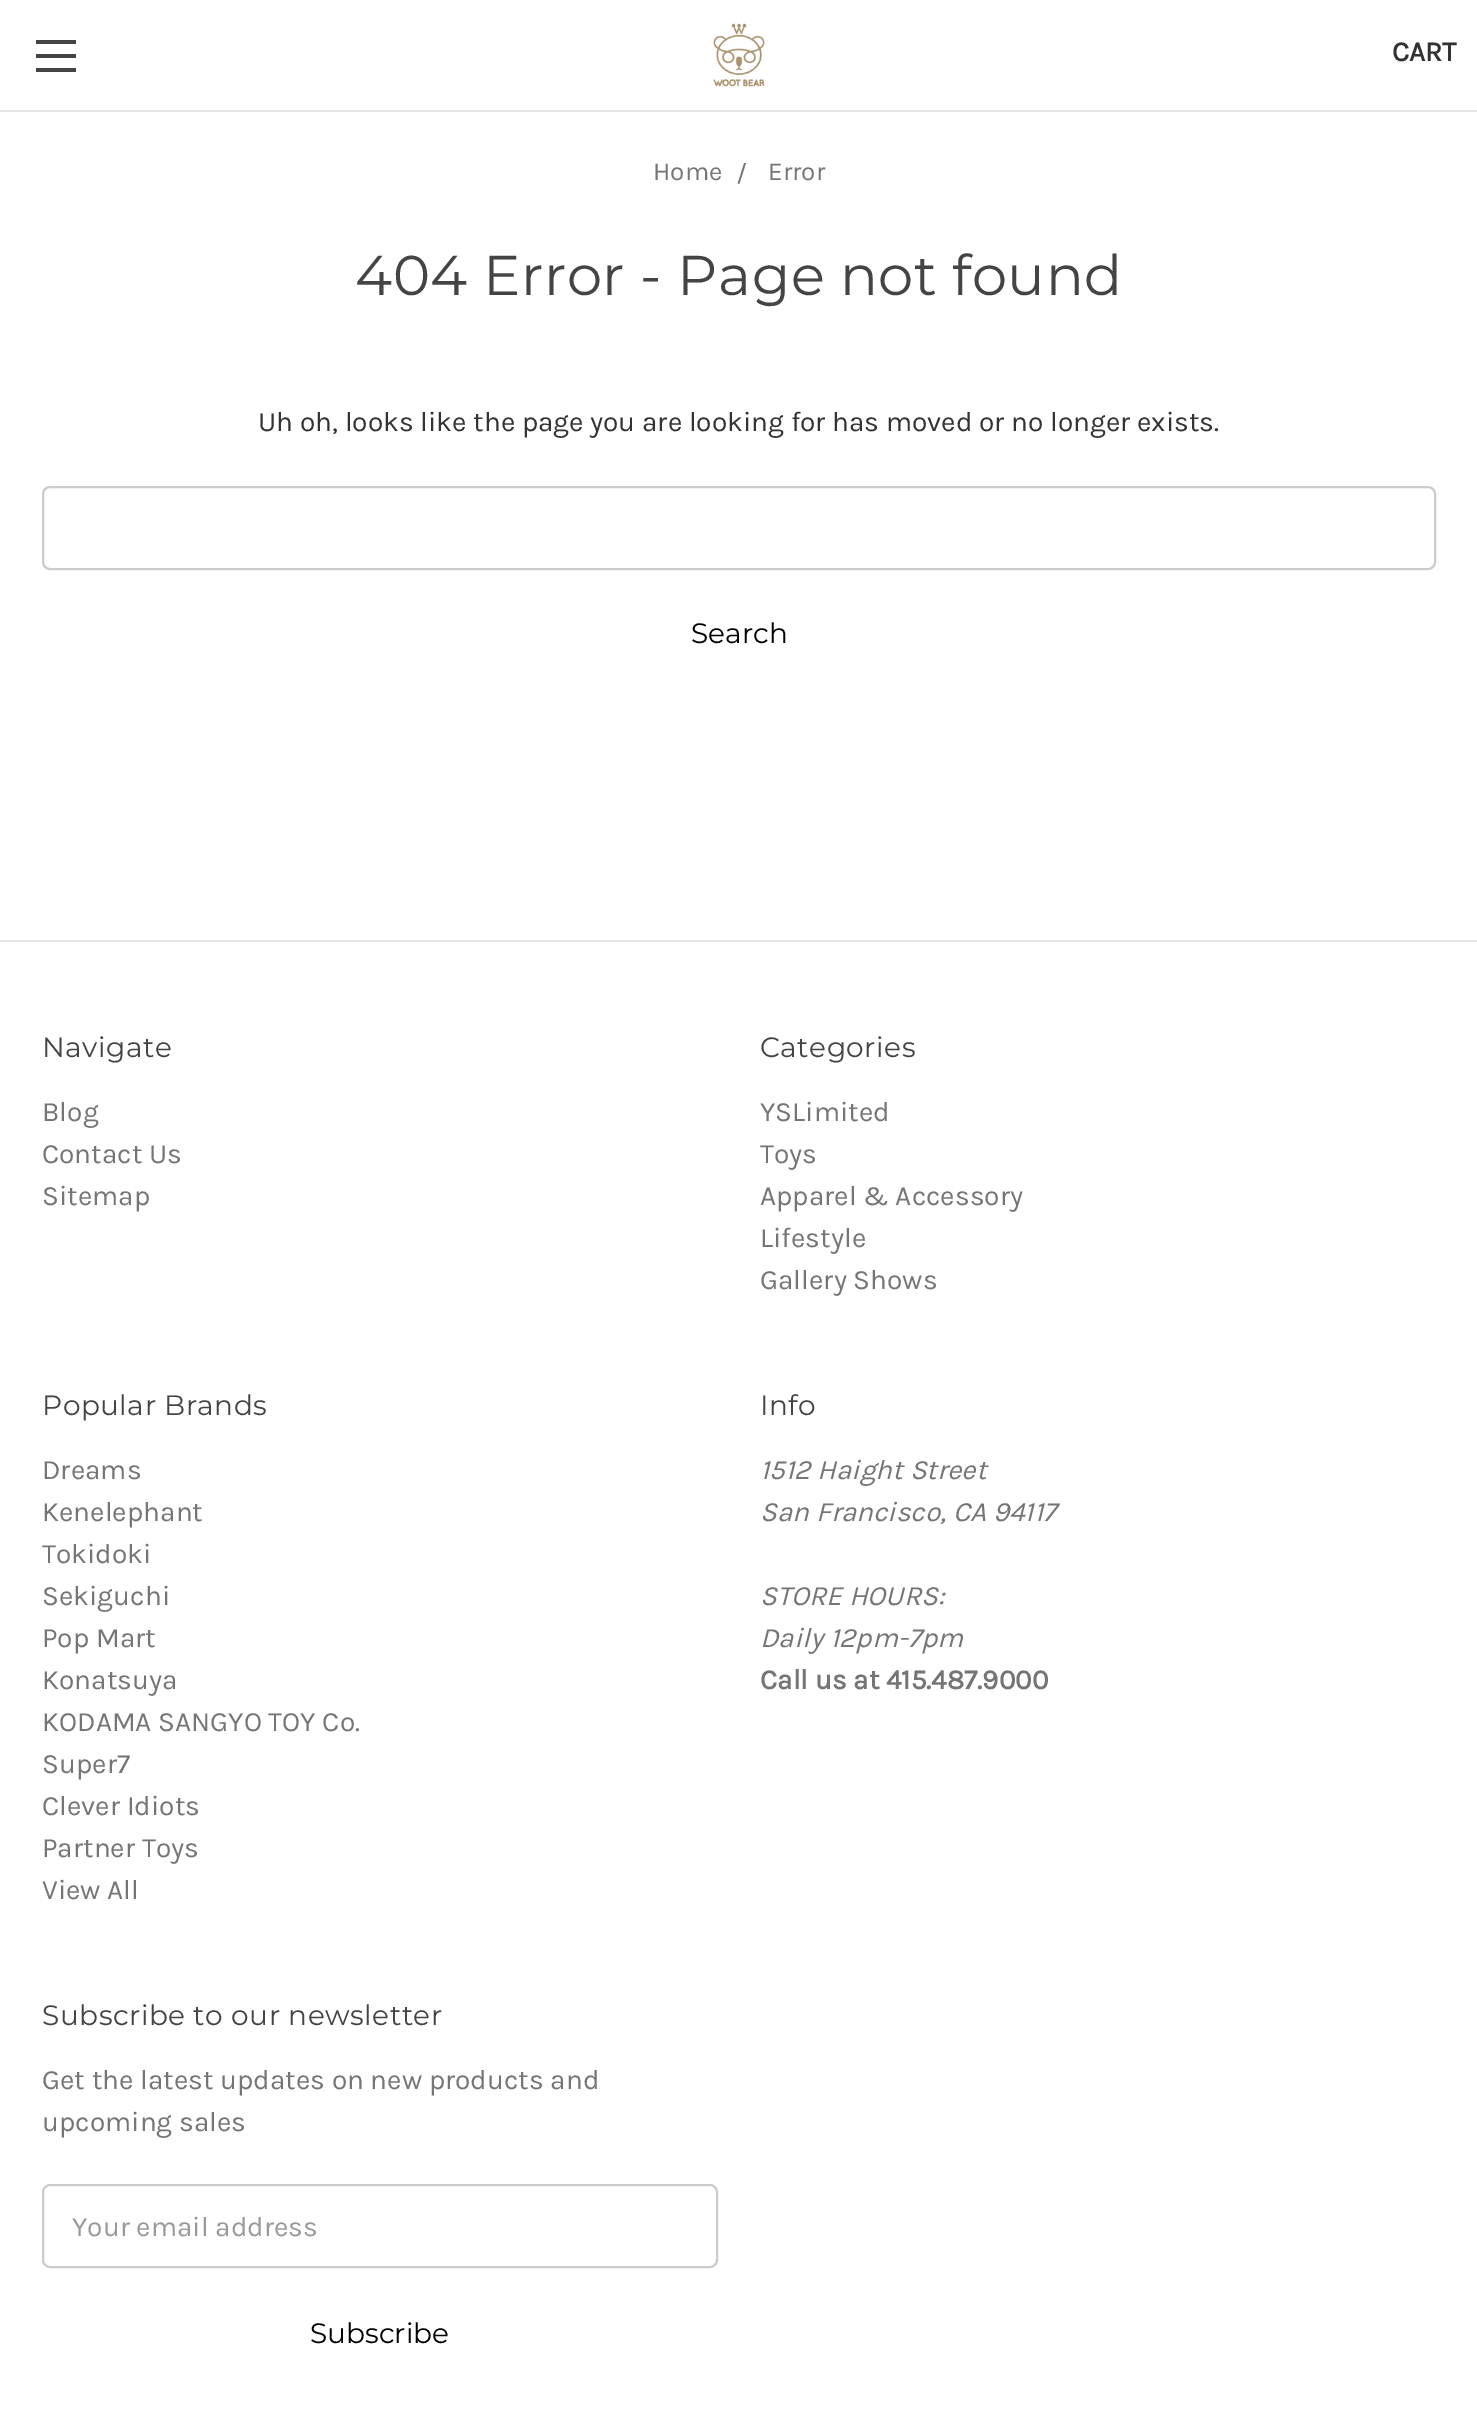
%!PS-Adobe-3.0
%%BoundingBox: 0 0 1477 2411
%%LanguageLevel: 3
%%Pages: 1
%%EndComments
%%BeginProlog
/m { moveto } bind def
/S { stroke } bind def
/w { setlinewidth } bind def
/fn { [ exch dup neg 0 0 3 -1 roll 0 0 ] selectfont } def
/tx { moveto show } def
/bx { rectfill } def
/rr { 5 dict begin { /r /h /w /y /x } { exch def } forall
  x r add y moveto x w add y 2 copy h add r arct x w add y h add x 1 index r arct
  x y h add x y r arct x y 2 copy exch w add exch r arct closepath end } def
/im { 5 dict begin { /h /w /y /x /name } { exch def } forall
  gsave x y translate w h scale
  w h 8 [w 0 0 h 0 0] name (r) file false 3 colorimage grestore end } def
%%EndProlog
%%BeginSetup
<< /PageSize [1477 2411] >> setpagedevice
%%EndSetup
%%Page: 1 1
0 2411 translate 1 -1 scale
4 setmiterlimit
1 setgray
0 0 1477 2411 bx
0.898 setgray
0 110 1477 2 bx
0.267 setgray
36 54 40 4 bx
36 40 40 4 bx
36 68 40 4 bx
(image0.raw) 713 23 52 64 im
/Karla-Bold 28 fn
0.2 setgray
(CART) 1392 61 tx
/Karla-Regular 26 fn
0.459 setgray
(Home) 653 180 tx
(/) 736 182 tx
(Error) 768 180 tx
/Montserrat-Regular 56 fn
0.267 setgray
355 295 m 0.5 0 (404 Error - Page not found) ashow
/Karla-Regular 28 fn
0.2 setgray
(Uh oh, looks like the page you are looking for has moved or no longer exists.) 258 431 tx
0.8 setgray
2 w
43 487 1392 82 7 rr S
/Montserrat-Regular 28 fn
0 setgray
(Search) 691 643 tx
0.898 setgray
0 940 1477 2 bx
0.267 setgray
42 1057 m 0.5 0 (Navigate) ashow
/Karla-Regular 28 fn
0.459 setgray
(Blog) 42 1121 tx
(Contact Us) 42 1163 tx
(Sitemap) 42 1205 tx
/Montserrat-Regular 28 fn
0.267 setgray
760 1057 m 0.5 0 (Categories) ashow
/Karla-Regular 28 fn
0.459 setgray
(YSLimited) 760 1121 tx
(Toys) 760 1163 tx
(Apparel & Accessory) 760 1205 tx
(Lifestyle) 760 1247 tx
(Gallery Shows) 760 1289 tx
/Montserrat-Regular 28 fn
0.267 setgray
42 1415 m 0.5 0 (Popular Brands) ashow
/Karla-Regular 28 fn
0.459 setgray
(Dreams) 42 1479 tx
(Kenelephant) 42 1521 tx
(Tokidoki) 42 1563 tx
(Sekiguchi) 42 1605 tx
(Pop Mart) 42 1647 tx
(Konatsuya) 42 1689 tx
(KODAMA SANGYO TOY Co.) 42 1731 tx
(Super7) 42 1773 tx
(Clever Idiots) 42 1815 tx
(Partner Toys) 42 1857 tx
(View All) 42 1899 tx
/Montserrat-Regular 28 fn
0.267 setgray
760 1415 m 0.5 0 (Info) ashow
/Karla-Italic 28 fn
0.459 setgray
(1512 Haight Street) 760 1479 tx
(San Francisco, CA 94117) 760 1521 tx
(STORE HOURS:) 760 1605 tx
(Daily 12pm-7pm) 760 1647 tx
/Karla-Bold 28 fn
(Call us at 415.487.9000) 760 1689 tx
/Montserrat-Regular 28 fn
0.267 setgray
42 2025 m 0.5 0 (Subscribe to our newsletter) ashow
/Karla-Regular 28 fn
0.459 setgray
(Get the latest updates on new products and) 42 2089 tx
(upcoming sales) 42 2131 tx
0.8 setgray
43 2185 674 82 7 rr S
0.6 setgray
(Your email address) 72 2236 tx
/Montserrat-Regular 28 fn
0 setgray
(Subscribe) 310 2343 tx
showpage
%%EOF
